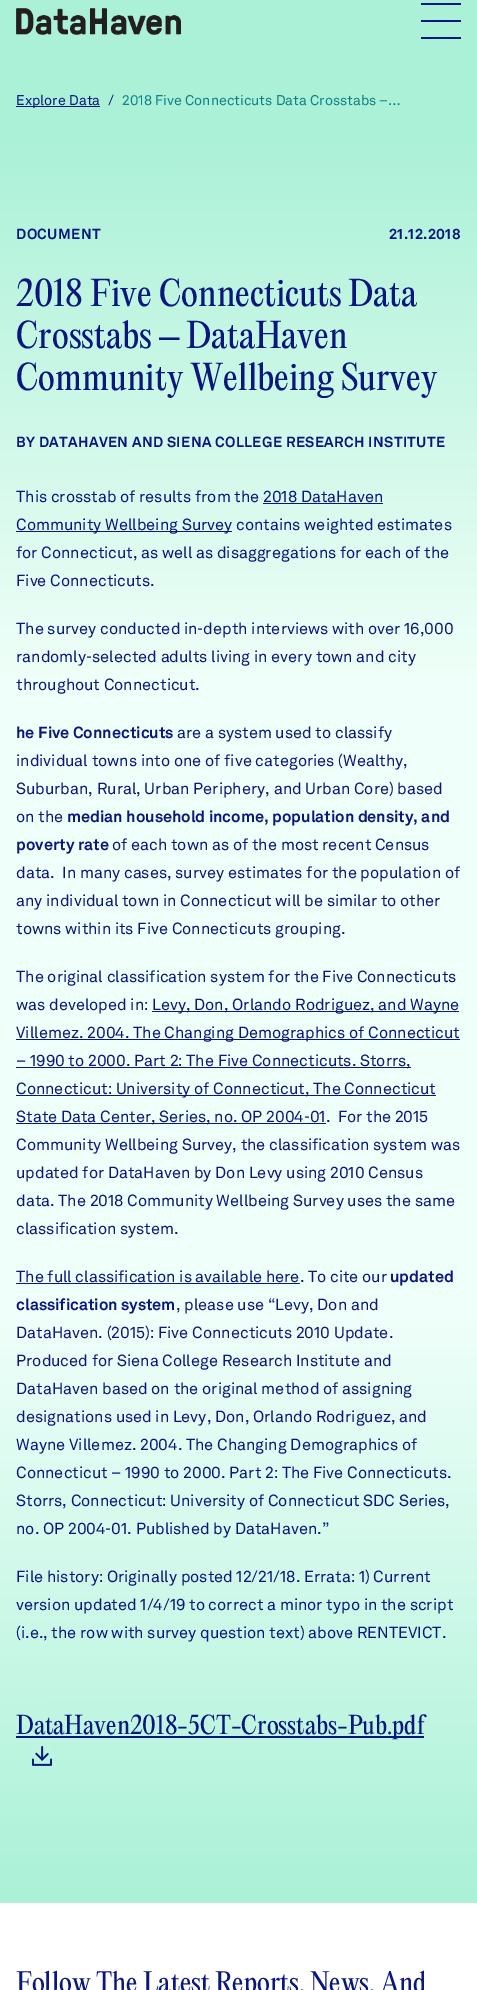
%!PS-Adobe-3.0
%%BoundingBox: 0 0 477 1990
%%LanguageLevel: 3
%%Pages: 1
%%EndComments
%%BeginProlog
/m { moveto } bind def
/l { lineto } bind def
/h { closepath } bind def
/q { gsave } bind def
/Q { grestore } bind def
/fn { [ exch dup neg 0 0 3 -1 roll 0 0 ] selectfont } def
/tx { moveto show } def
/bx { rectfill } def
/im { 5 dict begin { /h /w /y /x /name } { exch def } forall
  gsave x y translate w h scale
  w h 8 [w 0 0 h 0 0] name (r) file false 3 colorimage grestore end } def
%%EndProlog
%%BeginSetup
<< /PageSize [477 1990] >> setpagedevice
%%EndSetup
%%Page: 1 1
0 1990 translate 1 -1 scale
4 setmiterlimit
1 setgray
0 0 477 1990 bx
0.667 0.945 0.843 setrgbcolor
0 0 477 129 bx
(image0.raw) 16 8 165 27 im
0.043 0.09 0.486 setrgbcolor
421 3 40 2 bx
421 20 40 2 bx
421 37 40 2 bx
16 106 84 1 bx
/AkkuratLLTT-Regular 14 fn
(Explore Data) 16 105 tx
(/) 108 105 tx
0.071 0.502 0.529 setrgbcolor
(2018 Five Connecticuts Data Crosstabs –…) 122 105 tx
q 0 129 m 477 129 l 477 1903 l 0 1903 l h clip newpath
<< /ShadingType 2 /ColorSpace /DeviceRGB /Coords [238 128 239 1903] /Extend [true true] /Function << /FunctionType 3 /Domain [0 1] /Functions [<< /FunctionType 2 /Domain [0 1] /C0 [0.667 0.945 0.843] /C1 [0.937 1 0.976] /N 1 >> << /FunctionType 2 /Domain [0 1] /C0 [0.937 1 0.976] /C1 [0.937 1 0.976] /N 1 >> << /FunctionType 2 /Domain [0 1] /C0 [0.937 1 0.976] /C1 [0.667 0.945 0.843] /N 1 >>] /Bounds [0.31 0.67] /Encode [0 1 0 1 0 1] >> >> shfill Q
/AkkuratLLTT-Bold 14.5 fn
0.043 0.09 0.486 setrgbcolor
16 239 m 0.35 0 (DOCUMENT) ashow
389 239 m 0.35 0 (21.12.2018) ashow
/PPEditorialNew-Regular 34 fn
(2018 Five Connecticuts Data) 16 306 tx
(Crosstabs – DataHaven) 16 348 tx
(Community Wellbeing Survey) 16 390 tx
/AkkuratLLTT-Bold 14.5 fn
16 447 m 0.35 0 (BY DATAHAVEN AND SIENA COLLEGE RESEARCH INSTITUTE) ashow
/AkkuratLLTT-Regular 16 fn
(This crosstab of results from the 2018 DataHaven) 16 502 tx
16 531 216 1 bx
(Community Wellbeing Survey contains weighted estimates) 16 530 tx
263 503 120 1 bx
(for Connecticut, as well as disaggregations for each of the) 16 558 tx
(Five Connecticuts.) 16 586 tx
(The survey conducted in-depth interviews with over 16,000) 16 634 tx
(randomly-selected adults living in every town and city) 16 662 tx
(throughout Connecticut.) 16 690 tx
/AkkuratLLTT-Bold 16 fn
(he Five Connecticuts) 16 738 tx
/AkkuratLLTT-Regular 16 fn
(are a system used to classify) 177 738 tx
(individual towns into one of five categories \(Wealthy,) 16 766 tx
(Suburban, Rural, Urban Periphery, and Urban Core\) based) 16 794 tx
(on the) 16 822 tx
/AkkuratLLTT-Bold 16 fn
(median household income, population density, and) 67 822 tx
(poverty rate) 16 850 tx
/AkkuratLLTT-Regular 16 fn
(of each town as of the most recent Census) 112 850 tx
(data.  In many cases, survey estimates for the population of) 16 878 tx
(any individual town in Connecticut will be similar to other) 16 906 tx
(towns within its Five Connecticuts grouping.) 16 934 tx
(The original classification system for the Five Connecticuts) 16 982 tx
(was developed in:) 16 1010 tx
152 1011 307 1 bx
(Levy, Don, Orlando Rodriguez, and Wayne) 152 1010 tx
16 1039 444 1 bx
(Villemez. 2004. The Changing Demographics of Connecticut) 16 1038 tx
16 1067 395 1 bx
(– 1990 to 2000. Part 2: The Five Connecticuts. Storrs,) 16 1066 tx
16 1095 420 1 bx
(Connecticut: University of Connecticut, The Connecticut) 16 1094 tx
16 1123 310 1 bx
(State Data Center, Series, no. OP 2004-01.  For the 2015) 16 1122 tx
(Community Wellbeing Survey, the classification system was) 16 1150 tx
(updated for DataHaven by Don Levy using 2010 Census) 16 1178 tx
(data. The 2018 Community Wellbeing Survey uses the same) 16 1206 tx
(classification system.) 16 1234 tx
(The full classification is available here. To cite our) 16 1282 tx
16 1283 284 1 bx
/AkkuratLLTT-Bold 16 fn
(updated) 390 1282 tx
(classification system) 16 1310 tx
/AkkuratLLTT-Regular 16 fn
(, please use “Levy, Don and) 176 1310 tx
(DataHaven. \(2015\): Five Connecticuts 2010 Update.) 16 1338 tx
(Produced for Siena College Research Institute and) 16 1366 tx
(DataHaven based on the original method of assigning) 16 1394 tx
(designations used in Levy, Don, Orlando Rodriguez, and) 16 1422 tx
(Wayne Villemez. 2004. The Changing Demographics of) 16 1450 tx
(Connecticut – 1990 to 2000. Part 2: The Five Connecticuts.) 16 1478 tx
(Storrs, Connecticut: University of Connecticut SDC Series,) 16 1506 tx
(no. OP 2004-01. Published by DataHaven.”) 16 1534 tx
(File history: Originally posted 12/21/18. Errata: 1\) Current) 16 1582 tx
(version updated 1/4/19 to correct a minor typo in the script) 16 1610 tx
(\(i.e., the row with survey question text\) above RENTEVICT.) 16 1638 tx
16 1736 408 2 bx
/PPEditorialNew-Regular 24 fn
(DataHaven2018-5CT-Crosstabs-Pub.pdf) 16 1734 tx
(image1.raw) 32 1746 20 20 im
/PPEditorialNew-Regular 26 fn
(Follow The Latest Reports, News, And) 16 1992 tx
showpage
%%EOF
